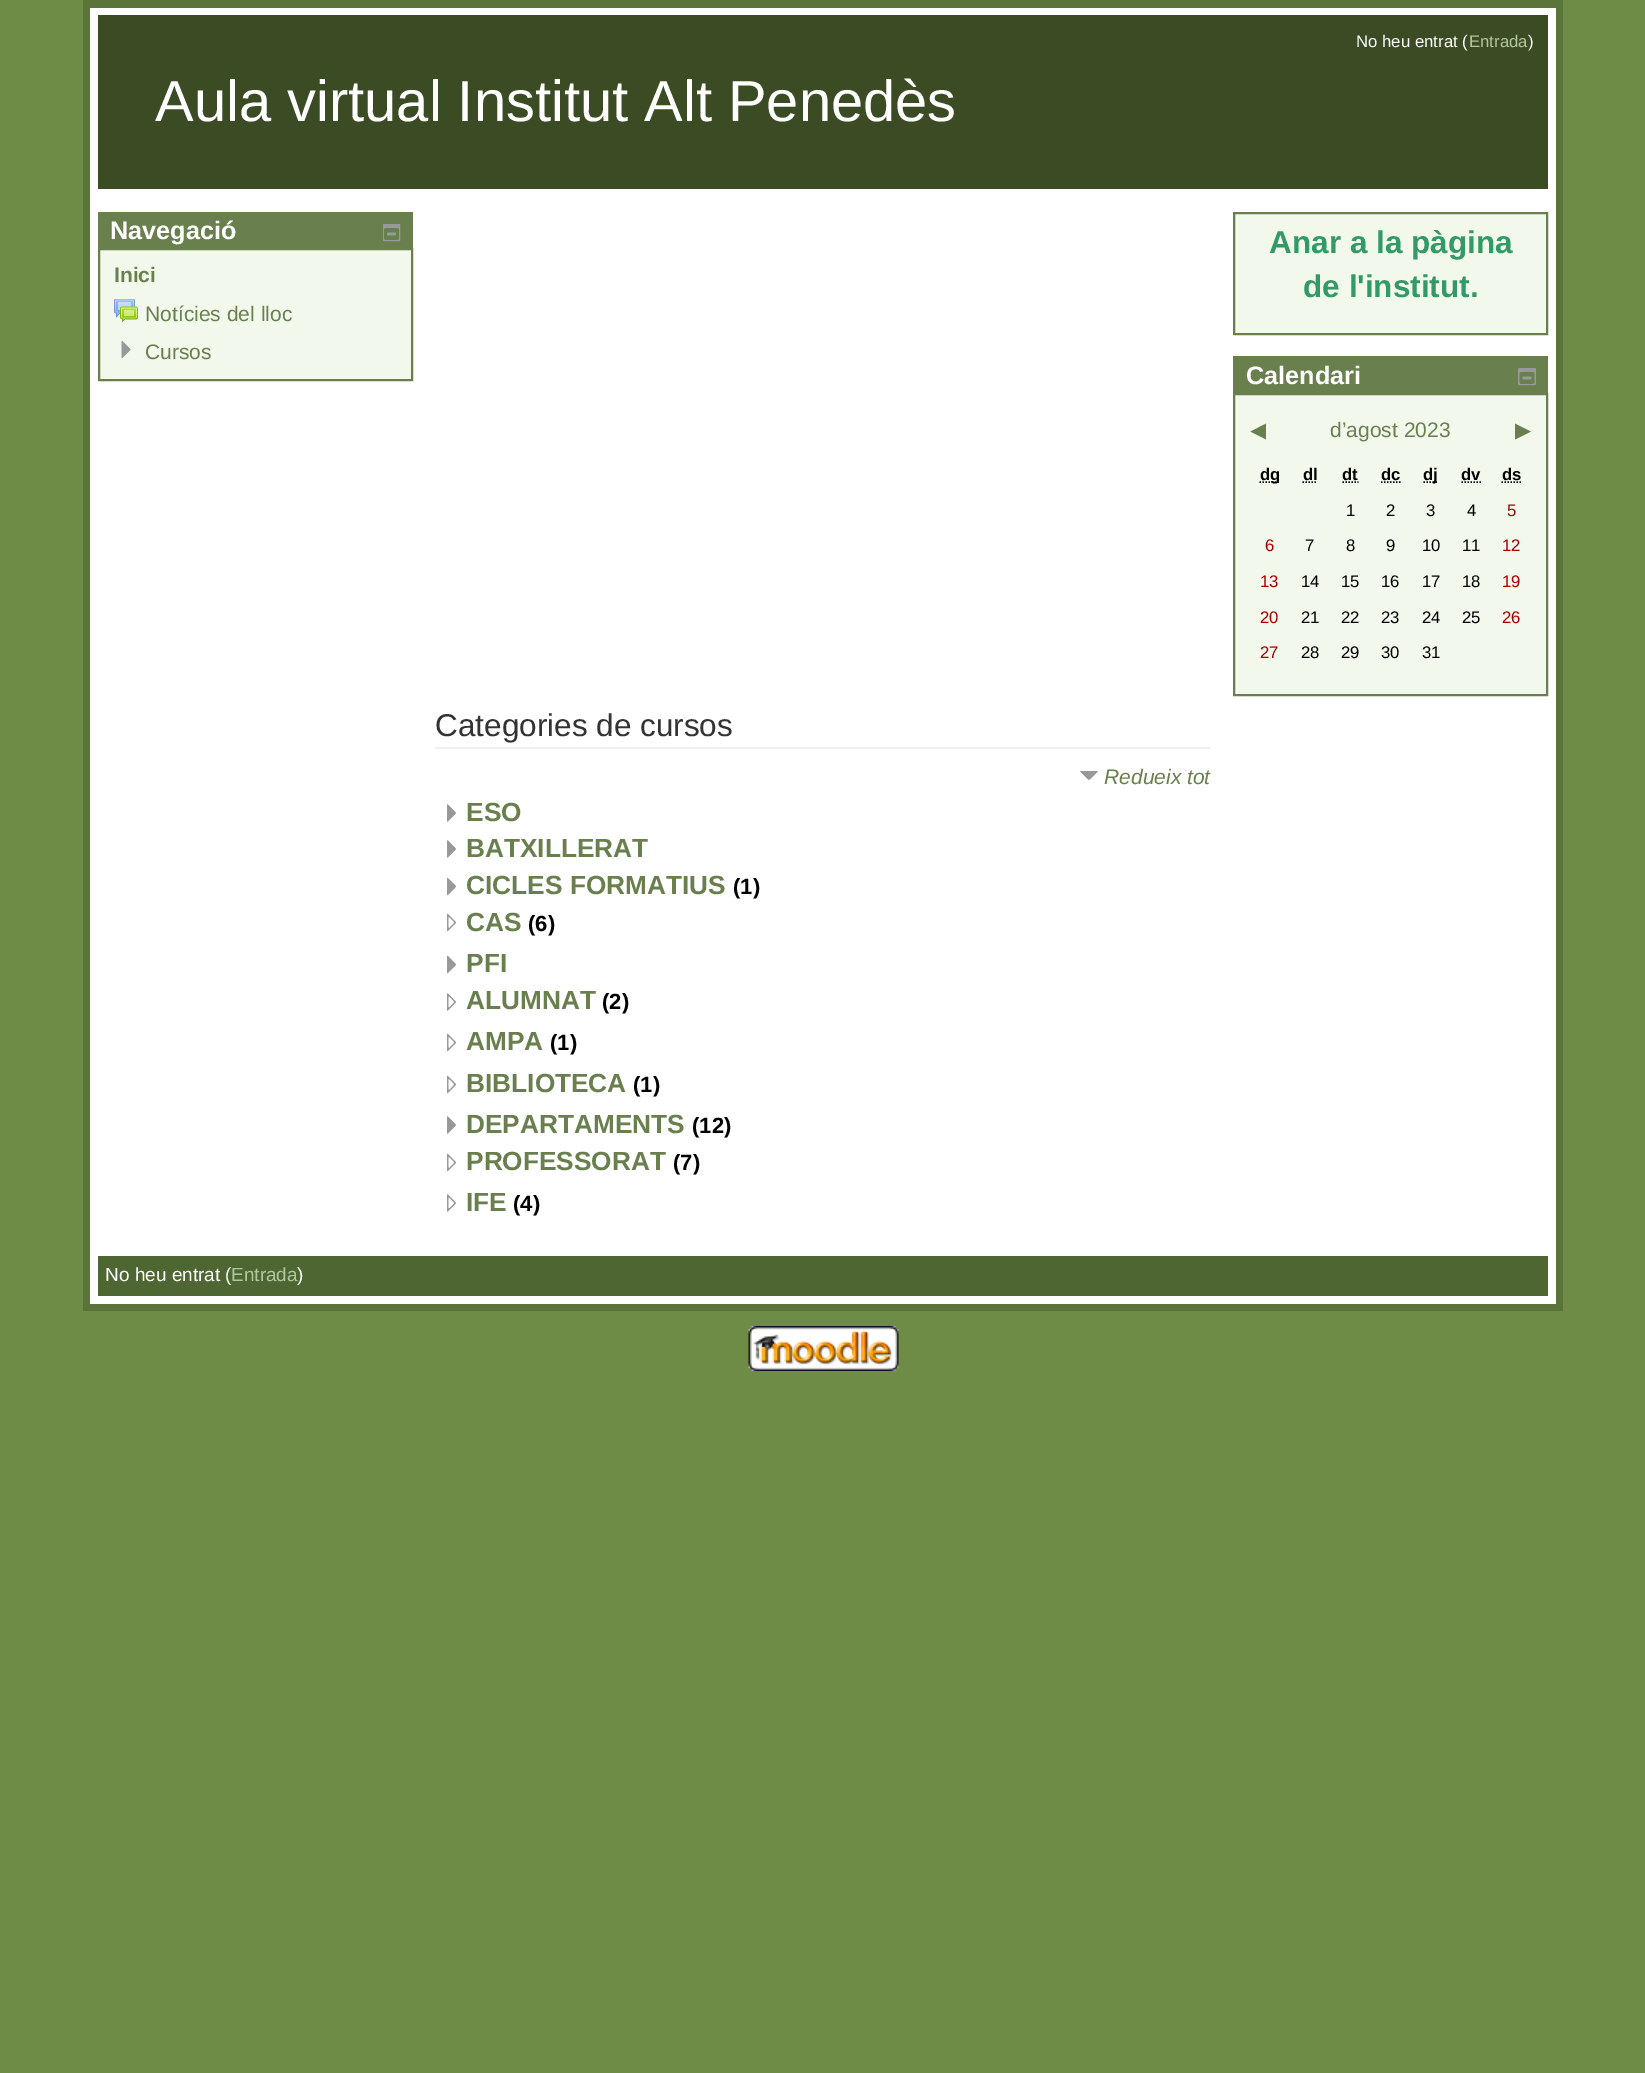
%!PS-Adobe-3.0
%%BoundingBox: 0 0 1645 2073
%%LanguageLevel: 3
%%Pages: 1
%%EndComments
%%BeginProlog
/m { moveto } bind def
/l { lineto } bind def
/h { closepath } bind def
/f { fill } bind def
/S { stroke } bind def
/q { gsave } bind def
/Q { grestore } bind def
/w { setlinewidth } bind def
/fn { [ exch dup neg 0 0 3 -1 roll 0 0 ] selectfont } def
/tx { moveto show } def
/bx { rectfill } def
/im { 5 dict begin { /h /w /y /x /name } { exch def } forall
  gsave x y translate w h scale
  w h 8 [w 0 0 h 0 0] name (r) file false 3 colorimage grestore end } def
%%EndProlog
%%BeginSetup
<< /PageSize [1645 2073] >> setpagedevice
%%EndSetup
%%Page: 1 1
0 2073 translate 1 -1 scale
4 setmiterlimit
0.431 0.549 0.271 setrgbcolor
0 0 1645 2073 bx
0.357 0.455 0.224 setrgbcolor
83 0 1480 1311 bx
1 setgray
90 8 1466 1296 bx
0.231 0.298 0.145 setrgbcolor
98 15 1450 174 bx
/LiberationSans-Regular 16.75 fn
1 setgray
(No heu entrat \() 1356 47 tx
0.702 0.78 0.616 setrgbcolor
(Entrada) 1469 47 tx
1 setgray
(\)) 1528 47 tx
/LiberationSans-Regular 57.9 fn
(Aula virtual Institut Alt Penedès) 155 121 tx
0.412 0.502 0.306 setrgbcolor
98 212 315 36 bx
/LiberationSans-Bold 25.25 fn
1 setgray
(Navegació) 110 239 tx
(image0.raw) 383 224 18 18 im
0.953 0.973 0.929 setrgbcolor
99 249 m 412 249 l 412 380 l 99 380 l h q f Q
0.412 0.502 0.306 setrgbcolor
2 w
S
/LiberationSans-Bold 21 fn
(Inici) 114 282 tx
(image1.raw) 114 299 24 24 im
/LiberationSans-Regular 21 fn
(Notícies del lloc) 145 321 tx
(image2.raw) 121 340 10 19 im
(Cursos) 145 359 tx
0.953 0.973 0.929 setrgbcolor
1234 213 m 1547 213 l 1547 334 l 1234 334 l h q f Q
0.412 0.502 0.306 setrgbcolor
S
/LiberationSans-Bold 31.5 fn
0.2 0.6 0.4 setrgbcolor
(Anar a la pàgina) 1269 253 tx
(de l'institut.) 1303 297 tx
0.412 0.502 0.306 setrgbcolor
1233 356 315 37 bx
/LiberationSans-Bold 25.25 fn
1 setgray
(Calendari) 1246 384 tx
(image3.raw) 1518 368 18 18 im
0.953 0.973 0.929 setrgbcolor
1234 394 m 1547 394 l 1547 695 l 1234 695 l h q f Q
0.412 0.502 0.306 setrgbcolor
S
/DejaVuSans-Regular 21 fn
(◀) 1250 437 tx
/LiberationSans-Regular 21 fn
(d’agost 2023) 1330 437 tx
/DejaVuSans-Regular 21 fn
(▶) 1515 437 tx
0 setgray
1.5 w
[1.5 1.5] 0 setdash
1259.5 482 m 1280 482 l S
/LiberationSans-Bold 16.75 fn
(dg) 1260 480 tx
(dl) 1303 480 tx
1302.5 482 m 1317.5 482 l S
(dt) 1342 480 tx
1342.5 482 m 1358.5 482 l S
(dc) 1381 480 tx
1381 482 m 1400.5 482 l S
1423.5 482 m 1438.5 482 l S
(dj) 1423 480 tx
(dv) 1461 480 tx
1461.5 482 m 1481 482 l S
(ds) 1502 480 tx
1501.5 482 m 1521.5 482 l S
/LiberationSans-Regular 16.75 fn
(1) 1346 516 tx
(2) 1386 516 tx
(3) 1426 516 tx
(4) 1467 516 tx
0.667 0 0 setrgbcolor
(5) 1507 516 tx
(6) 1265 551 tx
0 setgray
(7) 1305 551 tx
(8) 1346 551 tx
(9) 1386 551 tx
(10) 1422 551 tx
(11) 1462 551 tx
0.667 0 0 setrgbcolor
(12) 1502 551 tx
(13) 1260 587 tx
0 setgray
(14) 1301 587 tx
(15) 1341 587 tx
(16) 1381 587 tx
(17) 1422 587 tx
(18) 1462 587 tx
0.667 0 0 setrgbcolor
(19) 1502 587 tx
(20) 1260 623 tx
0 setgray
(21) 1301 623 tx
(22) 1341 623 tx
(23) 1381 623 tx
(24) 1422 623 tx
(25) 1462 623 tx
0.667 0 0 setrgbcolor
(26) 1502 623 tx
(27) 1260 658 tx
0 setgray
(28) 1301 658 tx
(29) 1341 658 tx
(30) 1381 658 tx
(31) 1422 658 tx
0.933 setgray
435 747 776 2 bx
/LiberationSans-Regular 31.5 fn
0.2 setgray
(Categories de cursos) 435 736 tx
(image4.raw) 1080 771 18 9 im
/LiberationSans-Italic 21 fn
0.412 0.502 0.306 setrgbcolor
(Redueix tot) 1104 784 tx
(image5.raw) 447 804 9 18 im
/LiberationSans-Bold 26.25 fn
(ESO) 466 821 tx
(image5.raw) 447 840 9 18 im
(BATXILLERAT) 466 857 tx
(image6.raw) 447 877 9 19 im
(CICLES FORMATIUS) 466 894 tx
/LiberationSans-Bold 22 fn
0 setgray
(\(1\)) 733 894 tx
(image7.raw) 447 913 9 19 im
/LiberationSans-Bold 26.25 fn
0.412 0.502 0.306 setrgbcolor
(CAS) 466 931 tx
/LiberationSans-Bold 22 fn
0 setgray
(\(6\)) 528 931 tx
(image6.raw) 447 955 9 19 im
/LiberationSans-Bold 26.25 fn
0.412 0.502 0.306 setrgbcolor
(PFI) 466 972 tx
(image8.raw) 447 993 9 18 im
(ALUMNAT) 466 1009 tx
/LiberationSans-Bold 22 fn
0 setgray
(\(2\)) 602 1009 tx
(image7.raw) 447 1033 9 19 im
/LiberationSans-Bold 26.25 fn
0.412 0.502 0.306 setrgbcolor
(AMPA) 466 1050 tx
/LiberationSans-Bold 22 fn
0 setgray
(\(1\)) 550 1050 tx
(image7.raw) 447 1075 9 19 im
/LiberationSans-Bold 26.25 fn
0.412 0.502 0.306 setrgbcolor
(BIBLIOTECA) 466 1092 tx
/LiberationSans-Bold 22 fn
0 setgray
(\(1\)) 633 1092 tx
(image5.raw) 447 1116 9 18 im
/LiberationSans-Bold 26.25 fn
0.412 0.502 0.306 setrgbcolor
(DEPARTAMENTS) 466 1133 tx
/LiberationSans-Bold 22 fn
0 setgray
(\(12\)) 692 1133 tx
(image7.raw) 447 1153 9 19 im
/LiberationSans-Bold 26.25 fn
0.412 0.502 0.306 setrgbcolor
(PROFESSORAT) 466 1170 tx
/LiberationSans-Bold 22 fn
0 setgray
(\(7\)) 673 1170 tx
(image9.raw) 447 1194 9 18 im
/LiberationSans-Bold 26.25 fn
0.412 0.502 0.306 setrgbcolor
(IFE) 466 1211 tx
/LiberationSans-Bold 22 fn
0 setgray
(\(4\)) 513 1211 tx
0.306 0.4 0.196 setrgbcolor
98 1256 1450 40 bx
/LiberationSans-Regular 19 fn
1 setgray
(No heu entrat \() 105 1281 tx
0.702 0.78 0.616 setrgbcolor
(Entrada) 231 1281 tx
1 setgray
(\)) 297 1281 tx
(image10.raw) 748 1326 151 45 im
showpage
%%EOF
